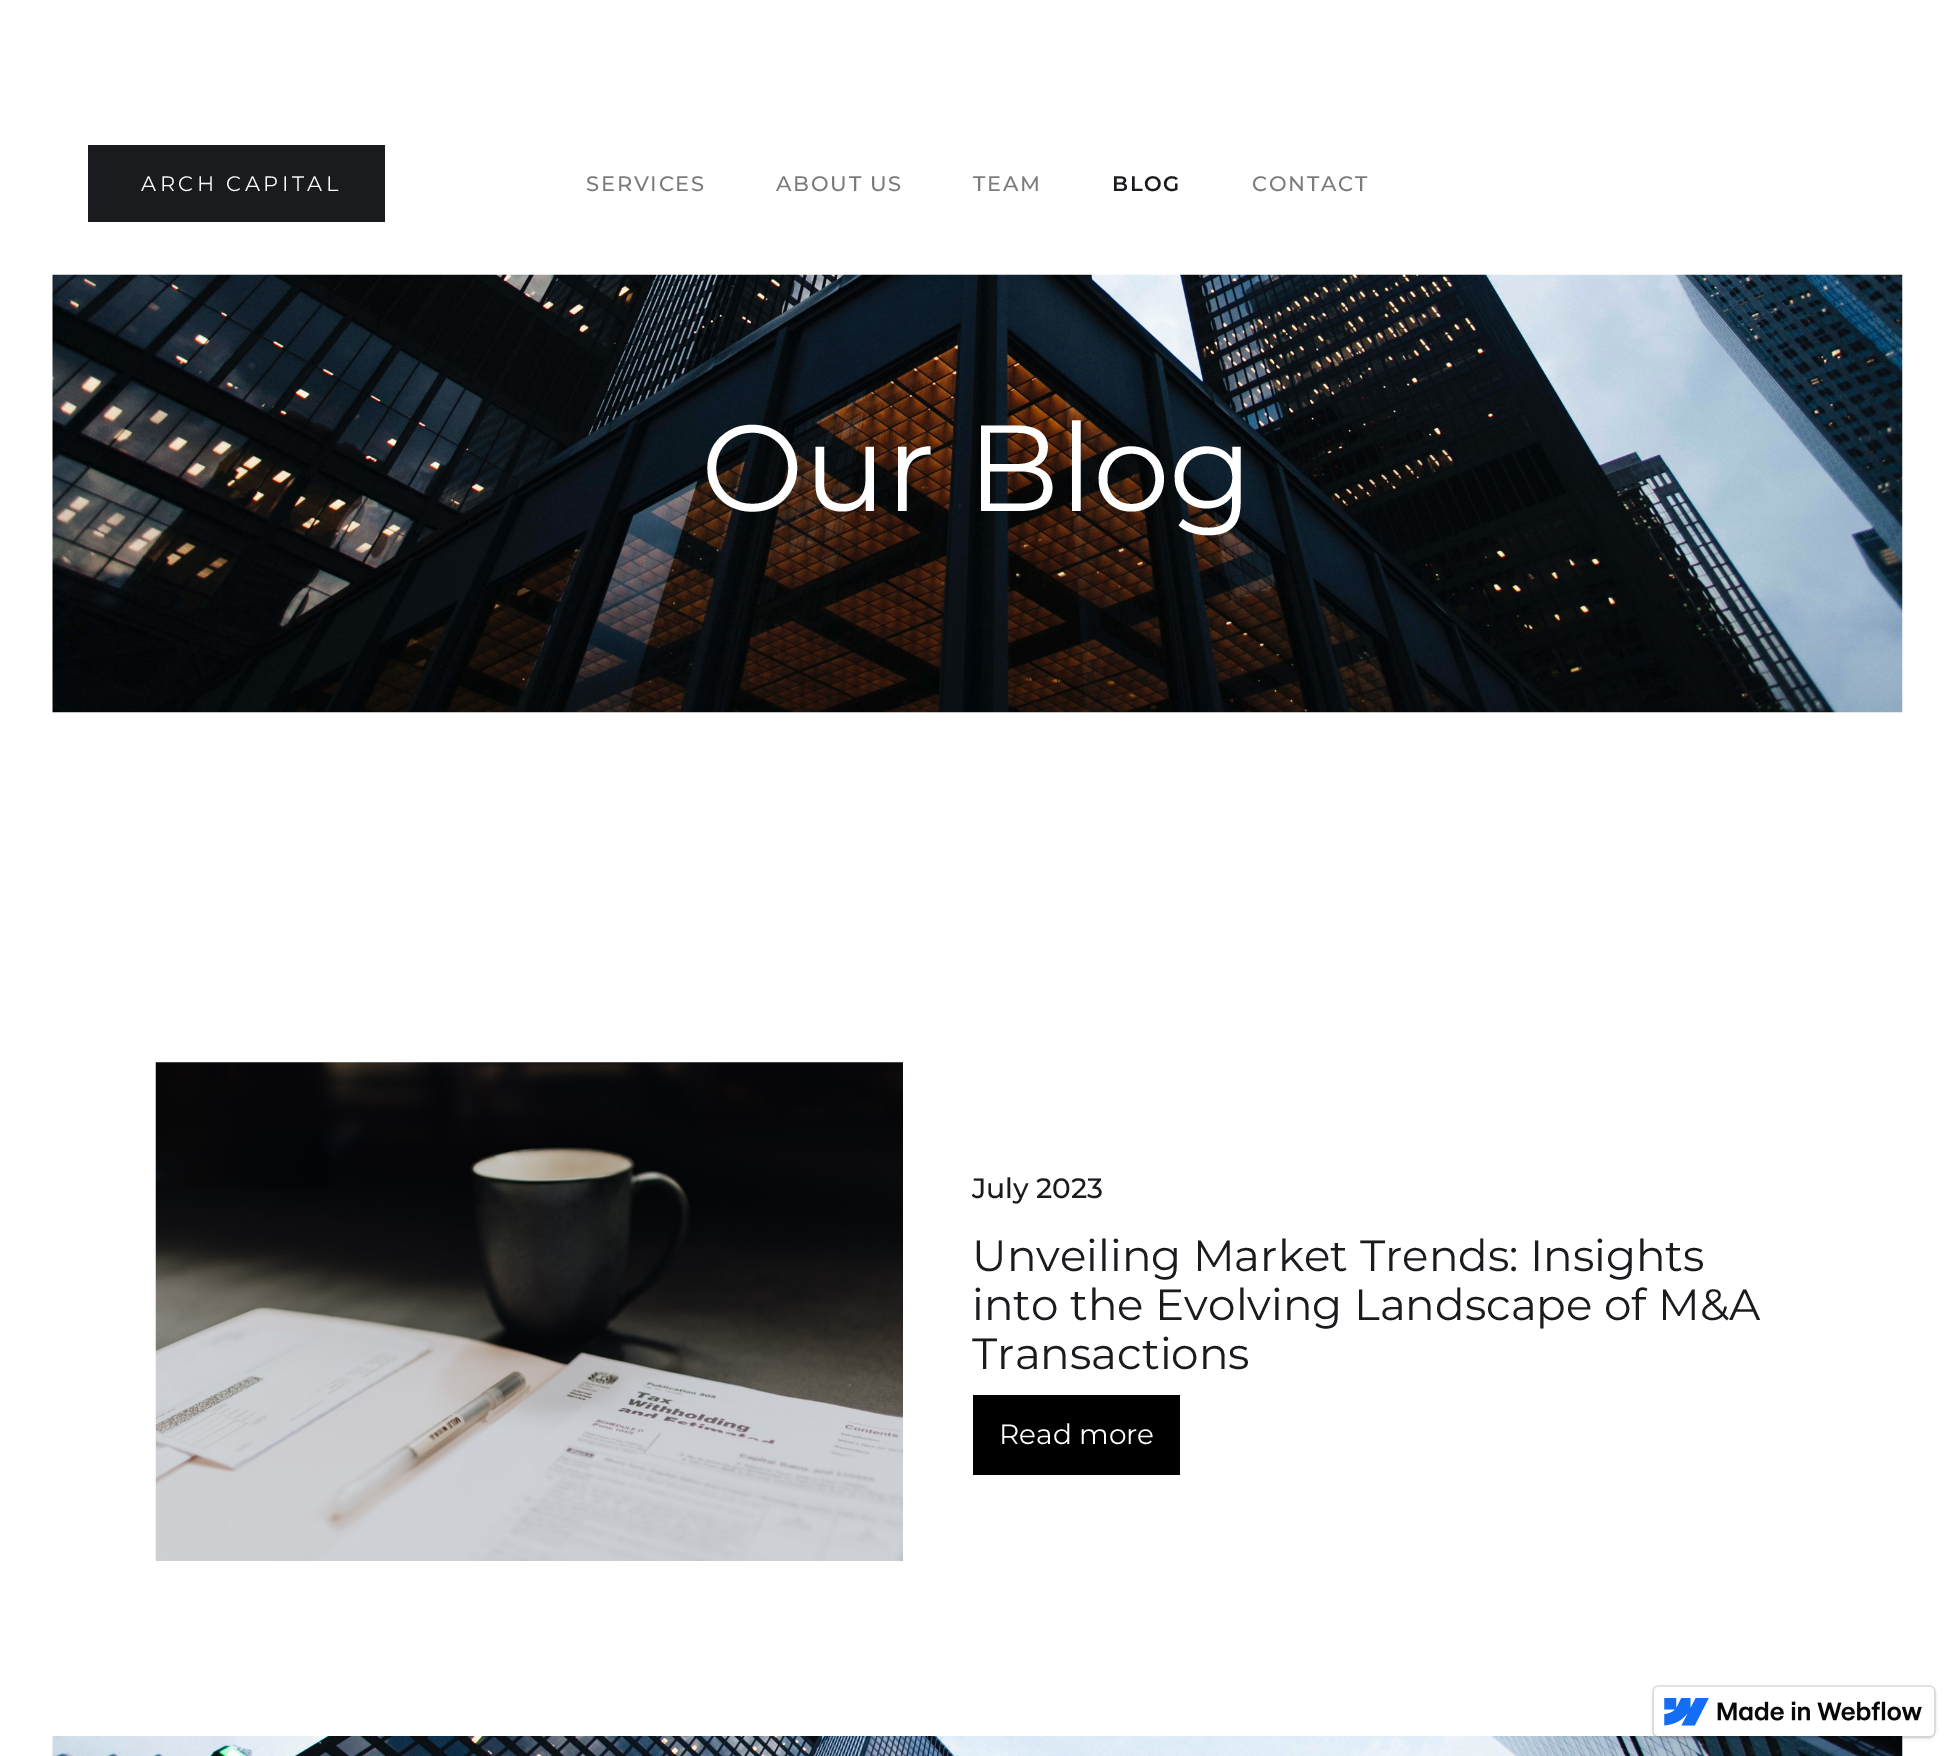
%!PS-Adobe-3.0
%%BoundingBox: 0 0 1954 1756
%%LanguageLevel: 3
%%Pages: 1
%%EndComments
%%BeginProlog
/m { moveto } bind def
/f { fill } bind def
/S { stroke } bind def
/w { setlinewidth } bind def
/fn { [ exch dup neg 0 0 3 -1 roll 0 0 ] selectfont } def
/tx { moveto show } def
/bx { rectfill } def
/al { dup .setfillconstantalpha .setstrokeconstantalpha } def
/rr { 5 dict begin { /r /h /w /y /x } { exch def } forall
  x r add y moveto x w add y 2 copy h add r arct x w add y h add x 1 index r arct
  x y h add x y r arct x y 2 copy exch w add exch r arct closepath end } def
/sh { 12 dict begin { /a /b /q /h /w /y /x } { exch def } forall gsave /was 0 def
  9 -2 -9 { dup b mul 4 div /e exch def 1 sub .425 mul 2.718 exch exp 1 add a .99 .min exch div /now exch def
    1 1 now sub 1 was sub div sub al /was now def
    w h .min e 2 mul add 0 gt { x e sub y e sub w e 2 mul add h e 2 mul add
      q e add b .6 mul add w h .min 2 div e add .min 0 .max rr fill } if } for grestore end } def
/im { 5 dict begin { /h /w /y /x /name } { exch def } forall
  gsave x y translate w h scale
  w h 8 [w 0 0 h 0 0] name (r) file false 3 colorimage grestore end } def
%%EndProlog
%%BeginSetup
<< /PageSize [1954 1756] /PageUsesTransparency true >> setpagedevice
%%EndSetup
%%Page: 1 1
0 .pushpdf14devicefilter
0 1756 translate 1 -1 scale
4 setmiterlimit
1 setgray
0 0 1954 1756 bx
0.102 0.106 0.122 setrgbcolor
88 145 297 77 bx
/Montserrat-Regular 21 fn
1 setgray
141 191 m 3.5 0 (ARCH CAPITAL) ashow
/Montserrat-Medium 21 fn
0.478 setgray
586 191 m 1.75 0 (SERVICES) ashow
776 191 m 1.75 0 (ABOUT US) ashow
973 191 m 1.75 0 (TEAM) ashow
/Montserrat-SemiBold 21 fn
0.102 0.106 0.122 setrgbcolor
1112 191 m 1.75 0 (BLOG) ashow
/Montserrat-Medium 21 fn
0.478 setgray
1252 191 m 1.75 0 (CONTACT) ashow
(image0.raw) 52 274 1851 439 im
/Montserrat-Regular 122.5 fn
1 setgray
(Our Blog) 701 511 tx
(image1.raw) 155 1062 748 499 im
/Montserrat-Medium 28 fn
0.102 0.106 0.122 setrgbcolor
(July 2023) 972 1198 tx
/Montserrat-Regular 43.75 fn
(Unveiling Market Trends: Insights) 972 1271 tx
(into the Evolving Landscape of M&A) 972 1320 tx
(Transactions) 972 1369 tx
0 setgray
973 1395 207 80 bx
/Montserrat-Regular 28 fn
1 setgray
(Read more) 999 1444 tx
(image4.raw) 52 1736 1851 20 im
0 setgray
1654 1689 280 49 5 2.5 0.1 sh
0.1 al
2 w
1653 1686 282 51 6 rr S
1 al
1 setgray
1654 1687 280 49 5 rr f
(image2.raw) 1664 1698 45 28 im
(image3.raw) 1717 1701 205 20 im
.poppdf14devicefilter showpage
%%EOF
